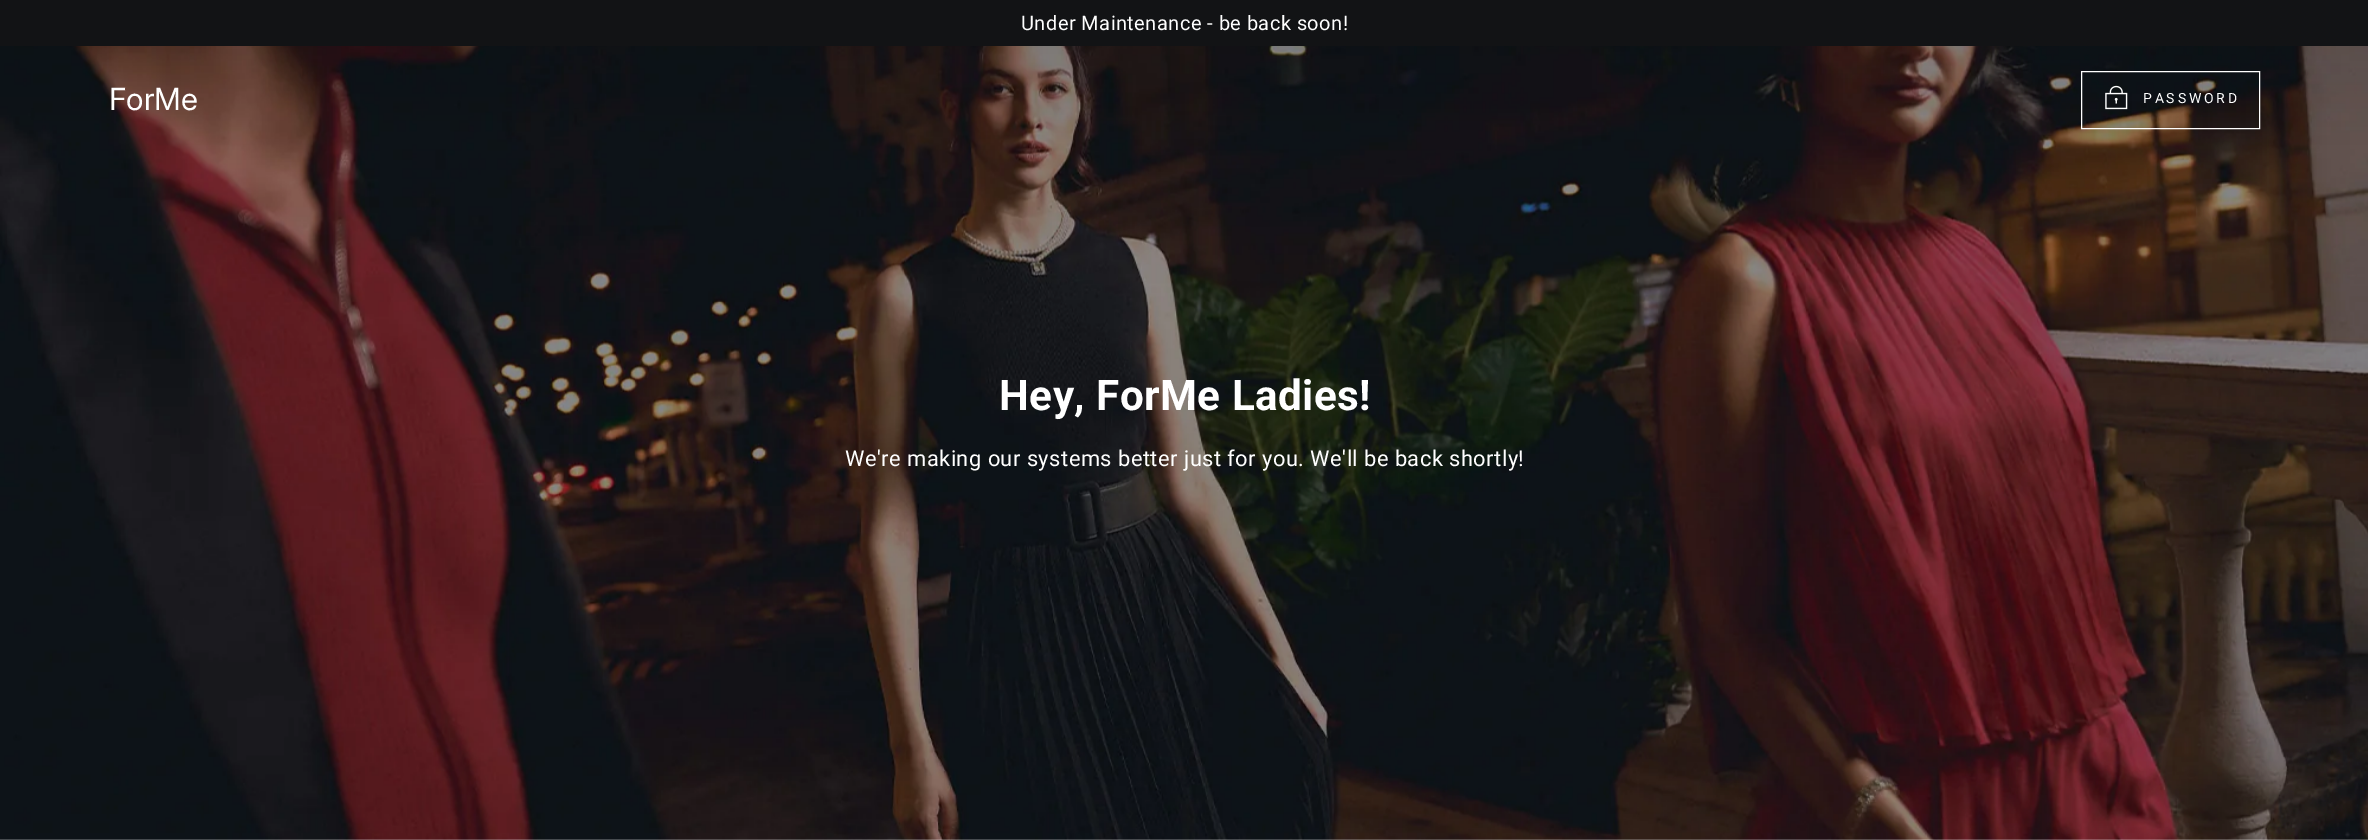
%!PS-Adobe-3.0
%%BoundingBox: 0 0 2368 840
%%LanguageLevel: 3
%%Pages: 1
%%EndComments
%%BeginProlog
/m { moveto } bind def
/fn { [ exch dup neg 0 0 3 -1 roll 0 0 ] selectfont } def
/tx { moveto show } def
/bx { rectfill } def
/im { 5 dict begin { /h /w /y /x /name } { exch def } forall
  gsave x y translate w h scale
  w h 8 [w 0 0 h 0 0] name (r) file false 3 colorimage grestore end } def
%%EndProlog
%%BeginSetup
<< /PageSize [2368 840] >> setpagedevice
%%EndSetup
%%Page: 1 1
0 840 translate 1 -1 scale
4 setmiterlimit
1 setgray
0 0 2368 840 bx
0.071 0.075 0.082 setrgbcolor
0 0 2368 46 bx
/Roboto-Regular 20 fn
1 setgray
1021 30 m 0.45 0 (Under Maintenance - be back soon!) ashow
(image1.raw) 0 46 2368 794 im
/Inter-Regular 30.5 fn
(ForMe) 109 110 tx
2081.5 71.5 178 57 rectstroke
(image0.raw) 2105 85 23 25 im
/Roboto-Regular 14 fn
2143 103 m 2.75 0 (PASSWORD) ashow
/Roboto-Bold 42.25 fn
999 410 m 0.45 0 (Hey, ForMe Ladies!) ashow
/Roboto-Regular 21.9 fn
845 466 m 0.45 0 (We're making our systems better just for you. We'll be back shortly!) ashow
showpage
%%EOF
